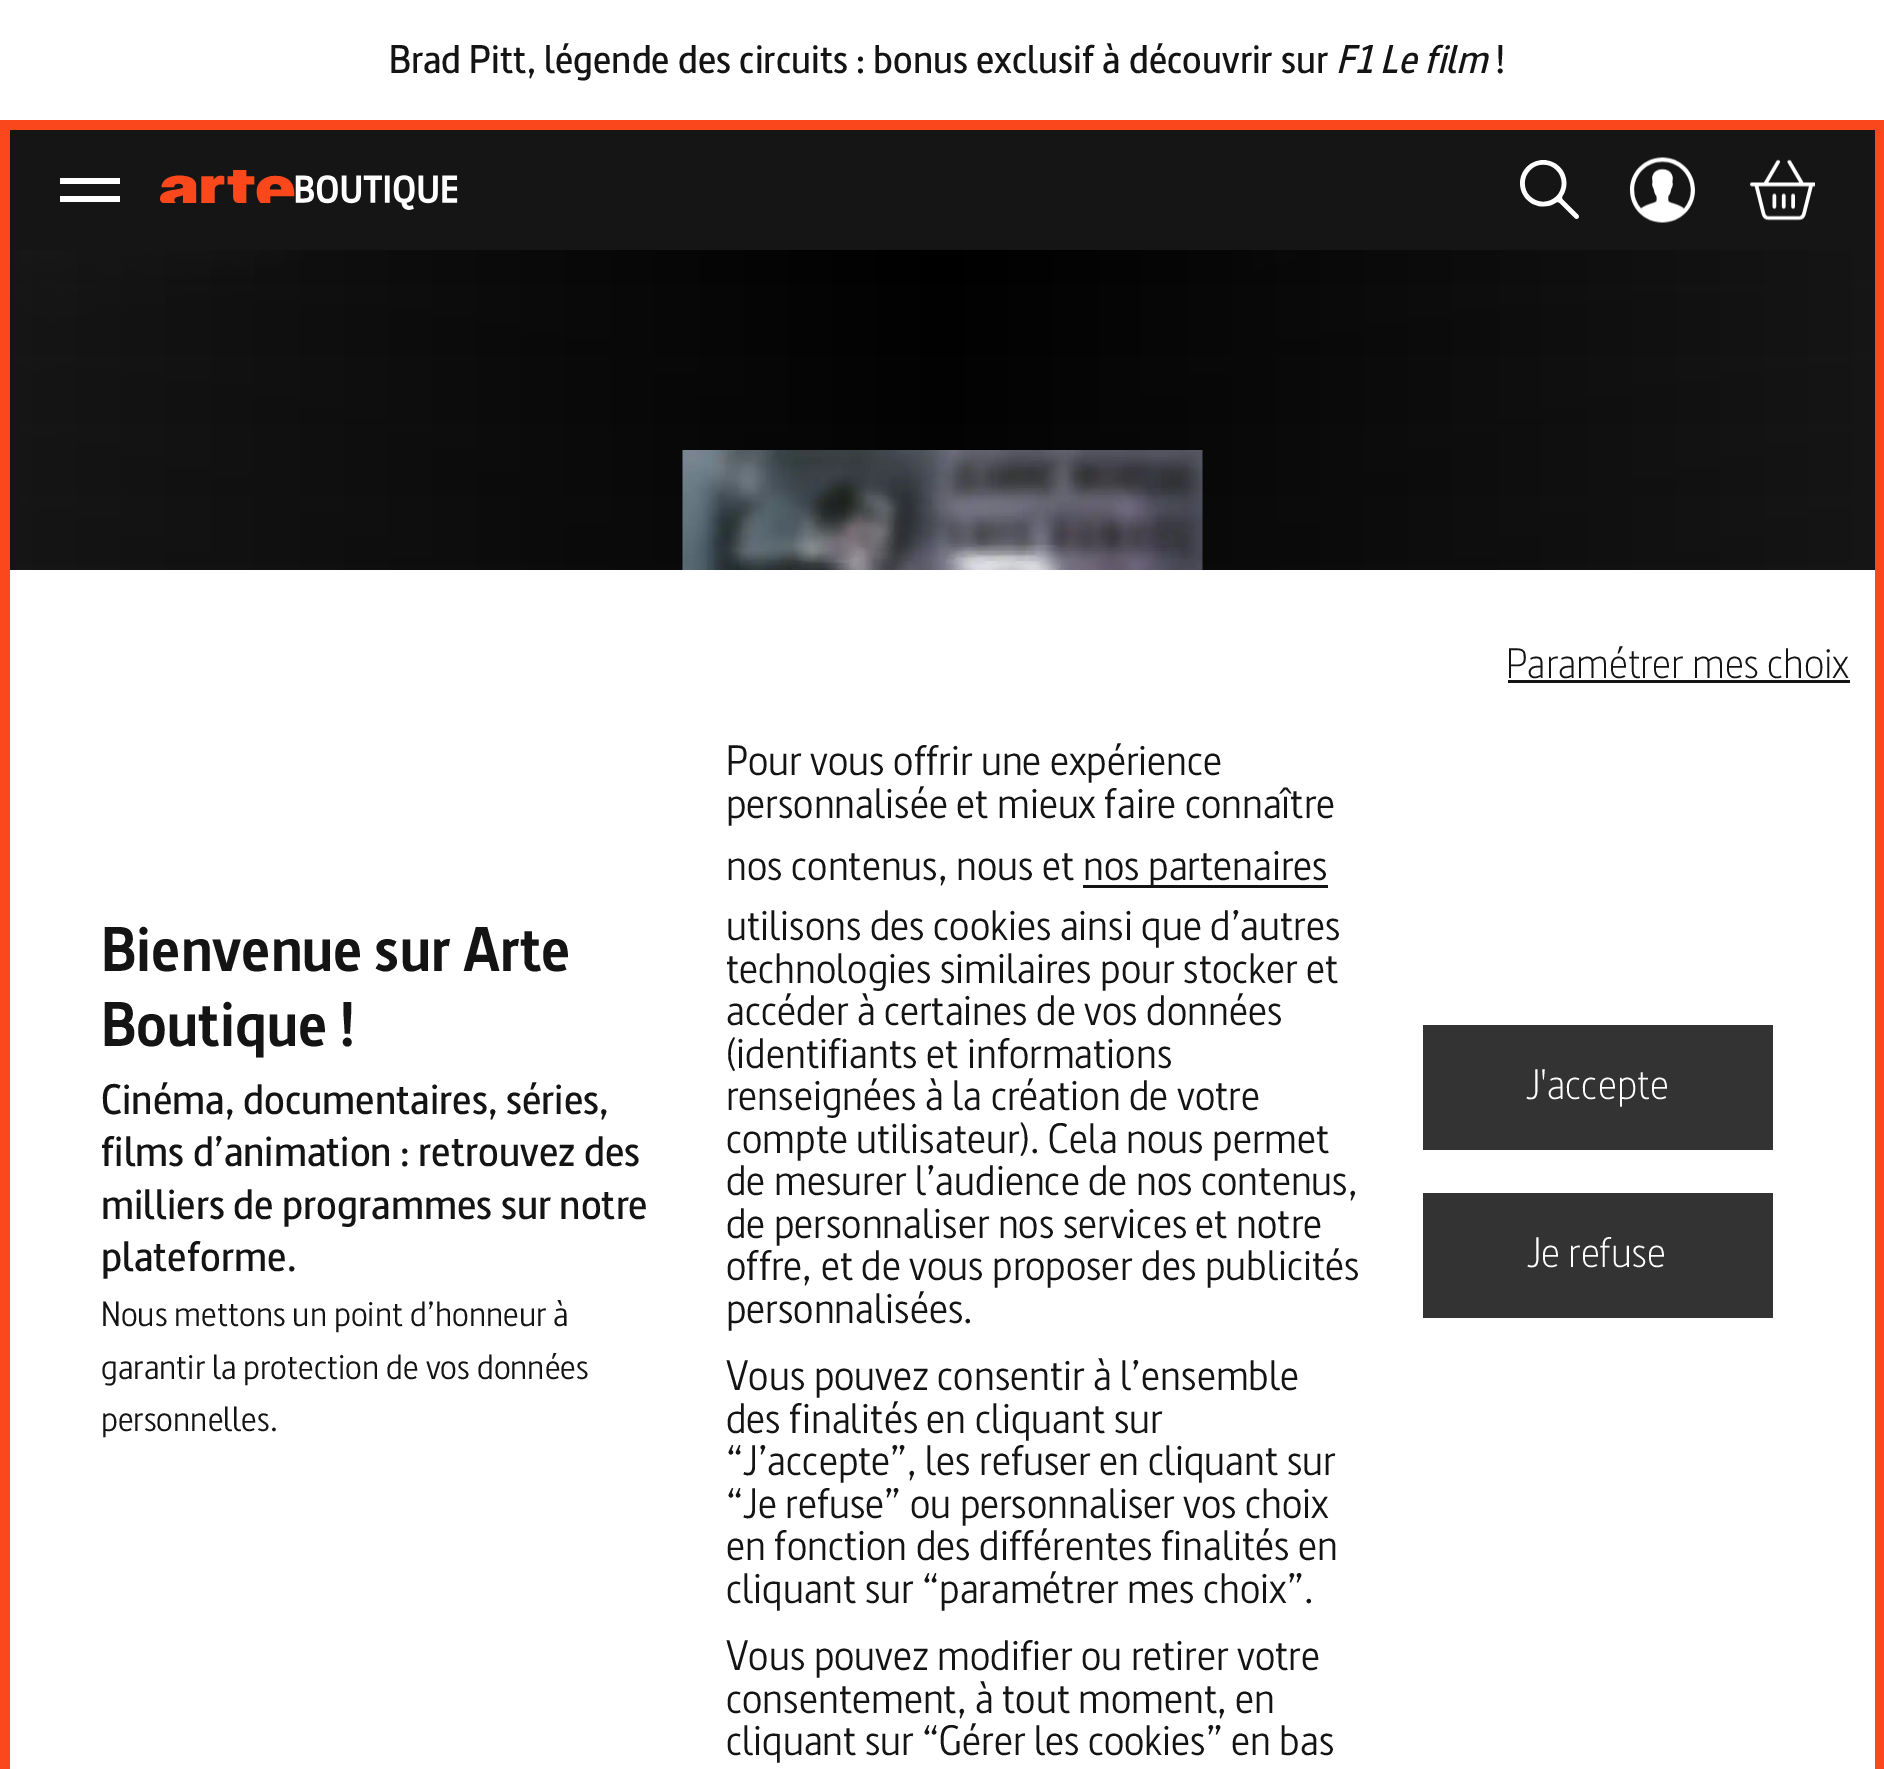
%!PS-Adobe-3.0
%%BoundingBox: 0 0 1884 1769
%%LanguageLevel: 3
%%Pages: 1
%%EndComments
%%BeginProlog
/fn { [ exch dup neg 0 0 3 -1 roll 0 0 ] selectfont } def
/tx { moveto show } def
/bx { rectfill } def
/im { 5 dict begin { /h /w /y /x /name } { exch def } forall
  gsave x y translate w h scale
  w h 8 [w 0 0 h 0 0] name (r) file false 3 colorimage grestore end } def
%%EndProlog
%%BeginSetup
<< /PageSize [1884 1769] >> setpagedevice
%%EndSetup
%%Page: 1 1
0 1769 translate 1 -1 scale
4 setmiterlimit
0.082 setgray
0 0 1884 1769 bx
1 setgray
0 0 1884 120 bx
/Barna-SemiBold 40 fn
0.078 setgray
(Brad Pitt, légende des circuits : bonus exclusif à découvrir sur) 389 73 tx
/Barna-SemiBoldItalic 40 fn
(F1 Le film) 1336 73 tx
/Barna-SemiBold 40 fn
(!) 1495 73 tx
0.98 0.282 0.11 setrgbcolor
1875 120 9 1649 bx
0 120 10 1649 bx
10 120 1865 10 bx
(image0.raw) 60 178 60 24 im
(image1.raw) 160 170 298 40 im
(image2.raw) 1520 160 59 59 im
(image3.raw) 1630 157 65 66 im
(image4.raw) 1750 159 65 62 im
(image5.raw) 10 250 1865 320 im
(image6.raw) 682 450 521 120 im
1 setgray
10 570 1865 1199 bx
/Barna-Light 42.5 fn
0.078 setgray
(Paramétrer mes choix) 1506 678 tx
1508 680 342 3 bx
/Barna-Bold 62.5 fn
(Bienvenue sur Arte) 101 971 tx
(Boutique !) 101 1046 tx
/Barna-SemiBold 42.5 fn
(Cinéma, documentaires, séries,) 101 1114 tx
(films d’animation : retrouvez des) 101 1166 tx
(milliers de programmes sur notre) 101 1219 tx
(plateforme.) 101 1271 tx
/Barna-Regular 35 fn
(Nous mettons un point d’honneur à) 101 1326 tx
(garantir la protection de vos données) 101 1379 tx
(personnelles.) 101 1431 tx
/Barna-Regular 42.5 fn
(Pour vous offrir une expérience) 726 775 tx
(personnalisée et mieux faire connaître) 726 818 tx
(nos contenus, nous et) 726 880 tx
1083 885 245 3 bx
(nos partenaires) 1083 880 tx
(utilisons des cookies ainsi que d’autres) 726 940 tx
(technologies similaires pour stocker et) 726 983 tx
(accéder à certaines de vos données) 726 1025 tx
(\(identifiants et informations) 726 1068 tx
(renseignées à la création de votre) 726 1110 tx
(compte utilisateur\). Cela nous permet) 726 1153 tx
(de mesurer l’audience de nos contenus,) 726 1195 tx
(de personnaliser nos services et notre) 726 1238 tx
(offre, et de vous proposer des publicités) 726 1280 tx
(personnalisées.) 726 1323 tx
(Vous pouvez consentir à l’ensemble) 726 1390 tx
(des finalités en cliquant sur) 726 1433 tx
(“J’accepte”, les refuser en cliquant sur) 726 1475 tx
(“Je refuse” ou personnaliser vos choix) 726 1518 tx
(en fonction des différentes finalités en) 726 1560 tx
(cliquant sur “paramétrer mes choix”.) 726 1603 tx
(Vous pouvez modifier ou retirer votre) 726 1670 tx
(consentement, à tout moment, en) 726 1713 tx
(cliquant sur “Gérer les cookies” en bas) 726 1755 tx
0.2 setgray
1423 1025 350 125 bx
/Barna-Light 42.5 fn
1 setgray
(J'accepte) 1526 1099 tx
0.2 setgray
1423 1193 350 125 bx
1 setgray
(Je refuse) 1527 1267 tx
showpage
%%EOF
